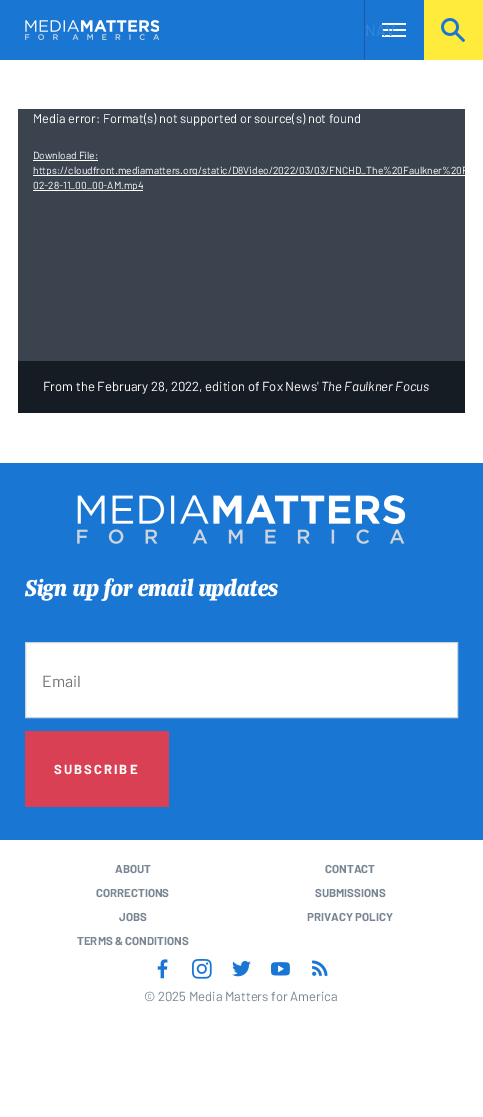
%!PS-Adobe-3.0
%%BoundingBox: 0 0 483 1117
%%LanguageLevel: 3
%%Pages: 1
%%EndComments
%%BeginProlog
/m { moveto } bind def
/l { lineto } bind def
/h { closepath } bind def
/f { fill } bind def
/S { stroke } bind def
/q { gsave } bind def
/Q { grestore } bind def
/fn { [ exch dup neg 0 0 3 -1 roll 0 0 ] selectfont } def
/tx { moveto show } def
/bx { rectfill } def
/im { 5 dict begin { /h /w /y /x /name } { exch def } forall
  gsave x y translate w h scale
  w h 8 [w 0 0 h 0 0] name (r) file false 3 colorimage grestore end } def
%%EndProlog
%%BeginSetup
<< /PageSize [483 1117] >> setpagedevice
%%EndSetup
%%Page: 1 1
0 1117 translate 1 -1 scale
4 setmiterlimit
1 setgray
0 0 483 1117 bx
0.098 0.463 0.824 setrgbcolor
0 0 424 60 bx
(image0.raw) 25 20 134 20 im
(image1.raw) 382 23 24 14 im
0.125 0.333 0.698 setrgbcolor
364 0 1 60 bx
/Barlow-Regular 16 fn
0.22 0.533 0.847 setrgbcolor
(NAV) 365 36 tx
1 0.922 0.231 setrgbcolor
424 0 59 60 bx
(image2.raw) 441 18 24 24 im
0.227 0.263 0.306 setrgbcolor
18 109 447 252 bx
/Barlow-Regular 12.8 fn
1 setgray
(Media error: Format\(s\) not supported or source\(s\) not found) 33 123 tx
/Barlow-Regular 10.25 fn
(Download File:) 33 159 tx
33 160 65 1 bx
33 175 432 1 bx
q
18 109 447 252 rectclip
(https://cloudfront.mediamatters.org/static/D8Video/2022/03/03/FNCHD_The%20Faulkner%20F) 33 174 tx
Q
33 190 110 1 bx
(02-28-11_00_00-AM.mp4) 33 189 tx
0.086 0.11 0.141 setrgbcolor
18 361 447 52 bx
/Barlow-Regular 13.1 fn
1 setgray
(From the February 28, 2022, edition of Fox News') 43 391 tx
/Barlow-Italic 13.1 fn
(The Faulkner Focus) 321 391 tx
0.098 0.463 0.824 setrgbcolor
0 463 483 377 bx
(image3.raw) 77 495 329 49 im
/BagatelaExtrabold-ExtraBoldItalic 24.6 fn
1 setgray
(Sign up for email updates) 25 596 tx
25.5 642.5 m 457.5 642.5 l 457.5 717.5 l 25.5 717.5 l h q f Q
0.8 0.831 0.867 setrgbcolor
S
/Barlow-Regular 16 fn
0.459 setgray
(Email) 42 687 tx
0.855 0.251 0.329 setrgbcolor
25 731 144 76 bx
/Barlow-Bold 13.1 fn
1 setgray
54 774 m 2 0 (SUBSCRIBE) ashow
/Barlow-Bold 11.5 fn
0.471 0.522 0.573 setrgbcolor
(ABOUT) 115 873 tx
(CONTACT) 325 873 tx
(CORRECTIONS) 96 897 tx
(SUBMISSIONS) 315 897 tx
(JOBS) 119 921 tx
(PRIVACY POLICY) 307 921 tx
(TERMS & CONDITIONS) 77 945 tx
(image4.raw) 157 959 11 20 im
(image5.raw) 192 959 20 20 im
(image6.raw) 232 961 19 16 im
(image7.raw) 271 962 19 14 im
(image8.raw) 312 960 16 16 im
/Barlow-Regular 13.1 fn
(© 2025 Media Matters for America) 144 1001 tx
showpage
%%EOF
